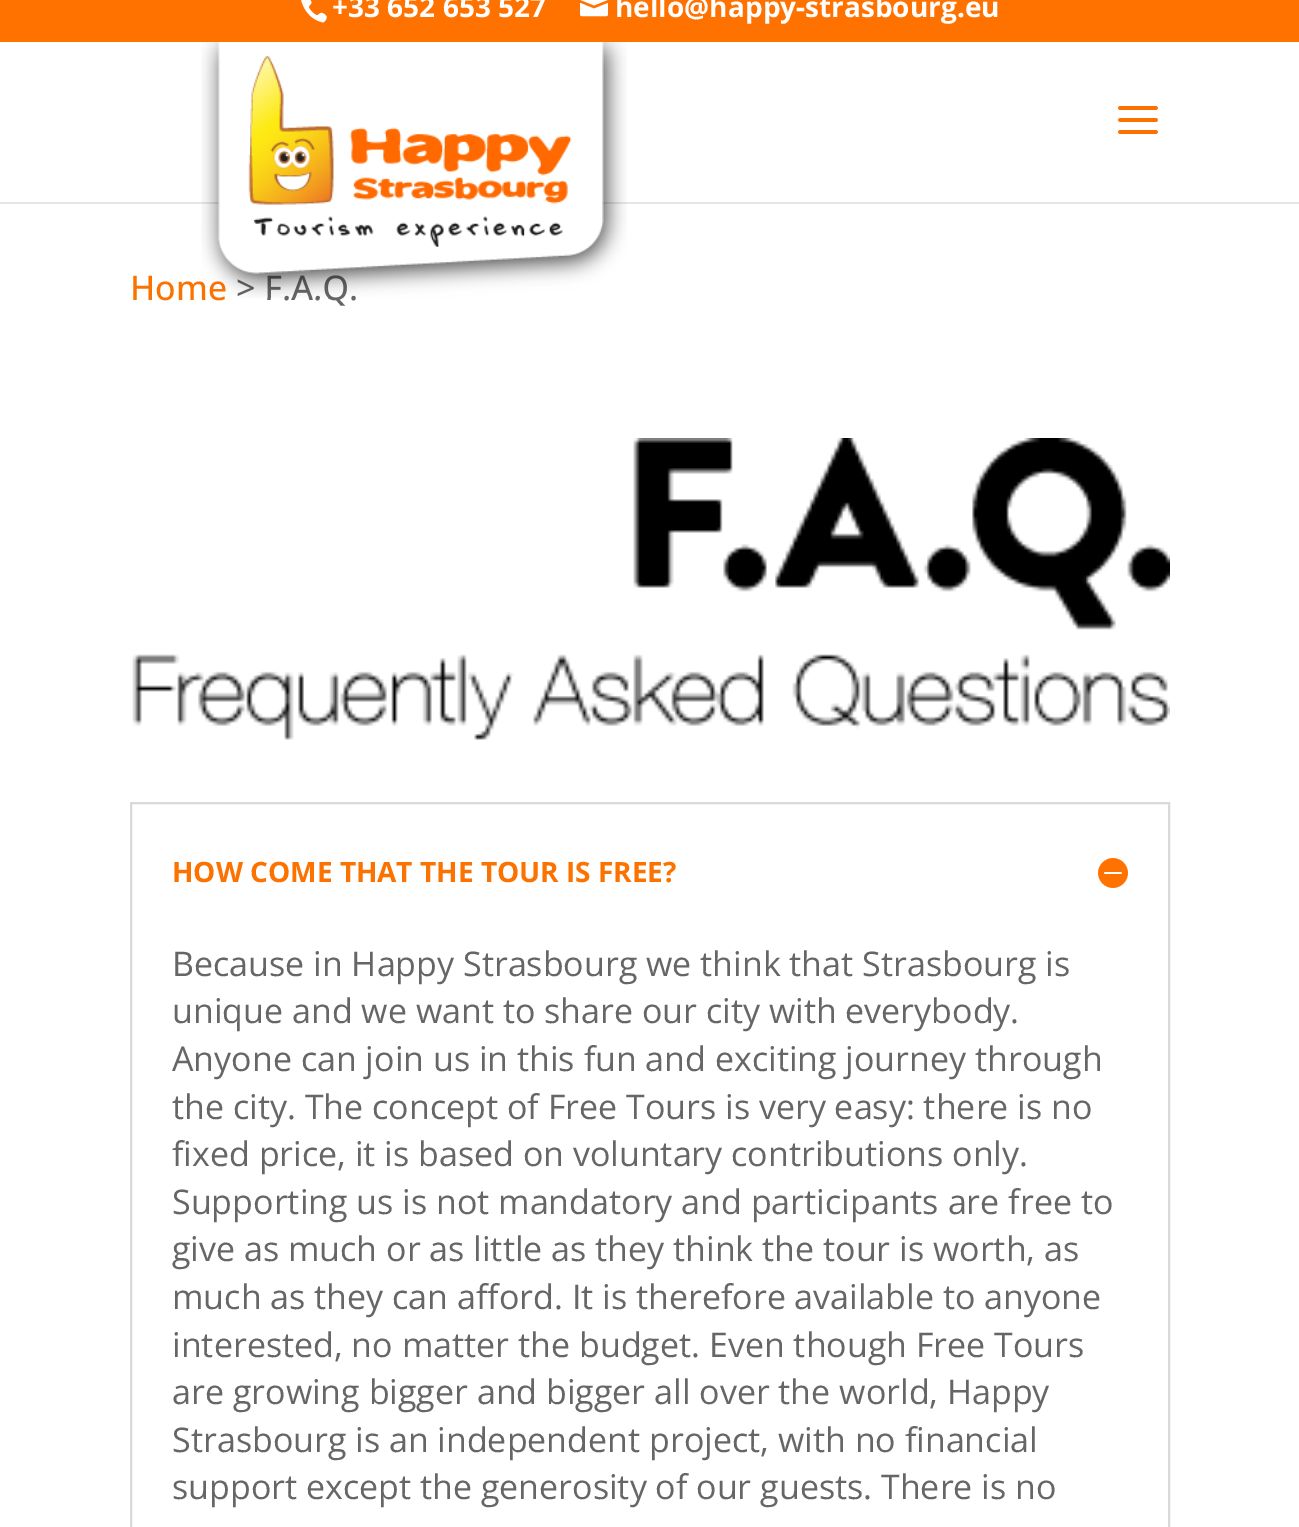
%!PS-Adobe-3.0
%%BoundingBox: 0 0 1299 1527
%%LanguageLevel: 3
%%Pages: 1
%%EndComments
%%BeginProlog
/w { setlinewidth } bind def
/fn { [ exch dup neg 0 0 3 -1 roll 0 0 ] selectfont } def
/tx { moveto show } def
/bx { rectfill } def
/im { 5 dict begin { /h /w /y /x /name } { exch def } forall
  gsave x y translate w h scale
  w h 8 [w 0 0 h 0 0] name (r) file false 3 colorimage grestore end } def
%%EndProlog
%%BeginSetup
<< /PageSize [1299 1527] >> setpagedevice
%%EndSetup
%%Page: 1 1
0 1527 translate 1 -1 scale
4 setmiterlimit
1 setgray
0 0 1299 1527 bx
1 0.447 0 setrgbcolor
0 0 1299 42 bx
(image0.raw) 301 0 26 23 im
/OpenSans-Bold 28 fn
1 setgray
(+33 652 653 527) 332 17 tx
(image1.raw) 580 0 28 17 im
(hello@happy-strasbourg.eu) 615 17 tx
0.902 setgray
0 202 1299 2 bx
/OpenSans-Medium 34 fn
0.988 0.447 0 setrgbcolor
(Home) 130 300 tx
0.4 setgray
(> F.A.Q.) 236 300 tx
(image2.raw) 201 42 426 256 im
(image3.raw) 1118 106 40 28 im
(image4.raw) 132 438 1038 302 im
0.851 setgray
2 w
131 803 1038 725 rectstroke
/OpenSans-Bold 28 fn
0.988 0.447 0 setrgbcolor
(HOW COME THAT THE TOUR IS FREE?) 172 882 tx
(image5.raw) 1098 858 30 30 im
/OpenSans-Regular 34 fn
0.4 setgray
(Because in Happy Strasbourg we think that Strasbourg is) 172 976 tx
(unique and we want to share our city with everybody.) 172 1023 tx
(Anyone can join us in this fun and exciting journey through) 172 1071 tx
(the city. The concept of Free Tours is very easy: there is no) 172 1119 tx
(fixed price, it is based on voluntary contributions only.) 172 1166 tx
(Supporting us is not mandatory and participants are free to) 172 1214 tx
(give as much or as little as they think the tour is worth, as) 172 1261 tx
(much as they can afford. It is therefore available to anyone) 172 1309 tx
(interested, no matter the budget. Even though Free Tours) 172 1357 tx
(are growing bigger and bigger all over the world, Happy) 172 1404 tx
(Strasbourg is an independent project, with no financial) 172 1452 tx
(support except the generosity of our guests. There is no) 172 1499 tx
showpage
%%EOF
